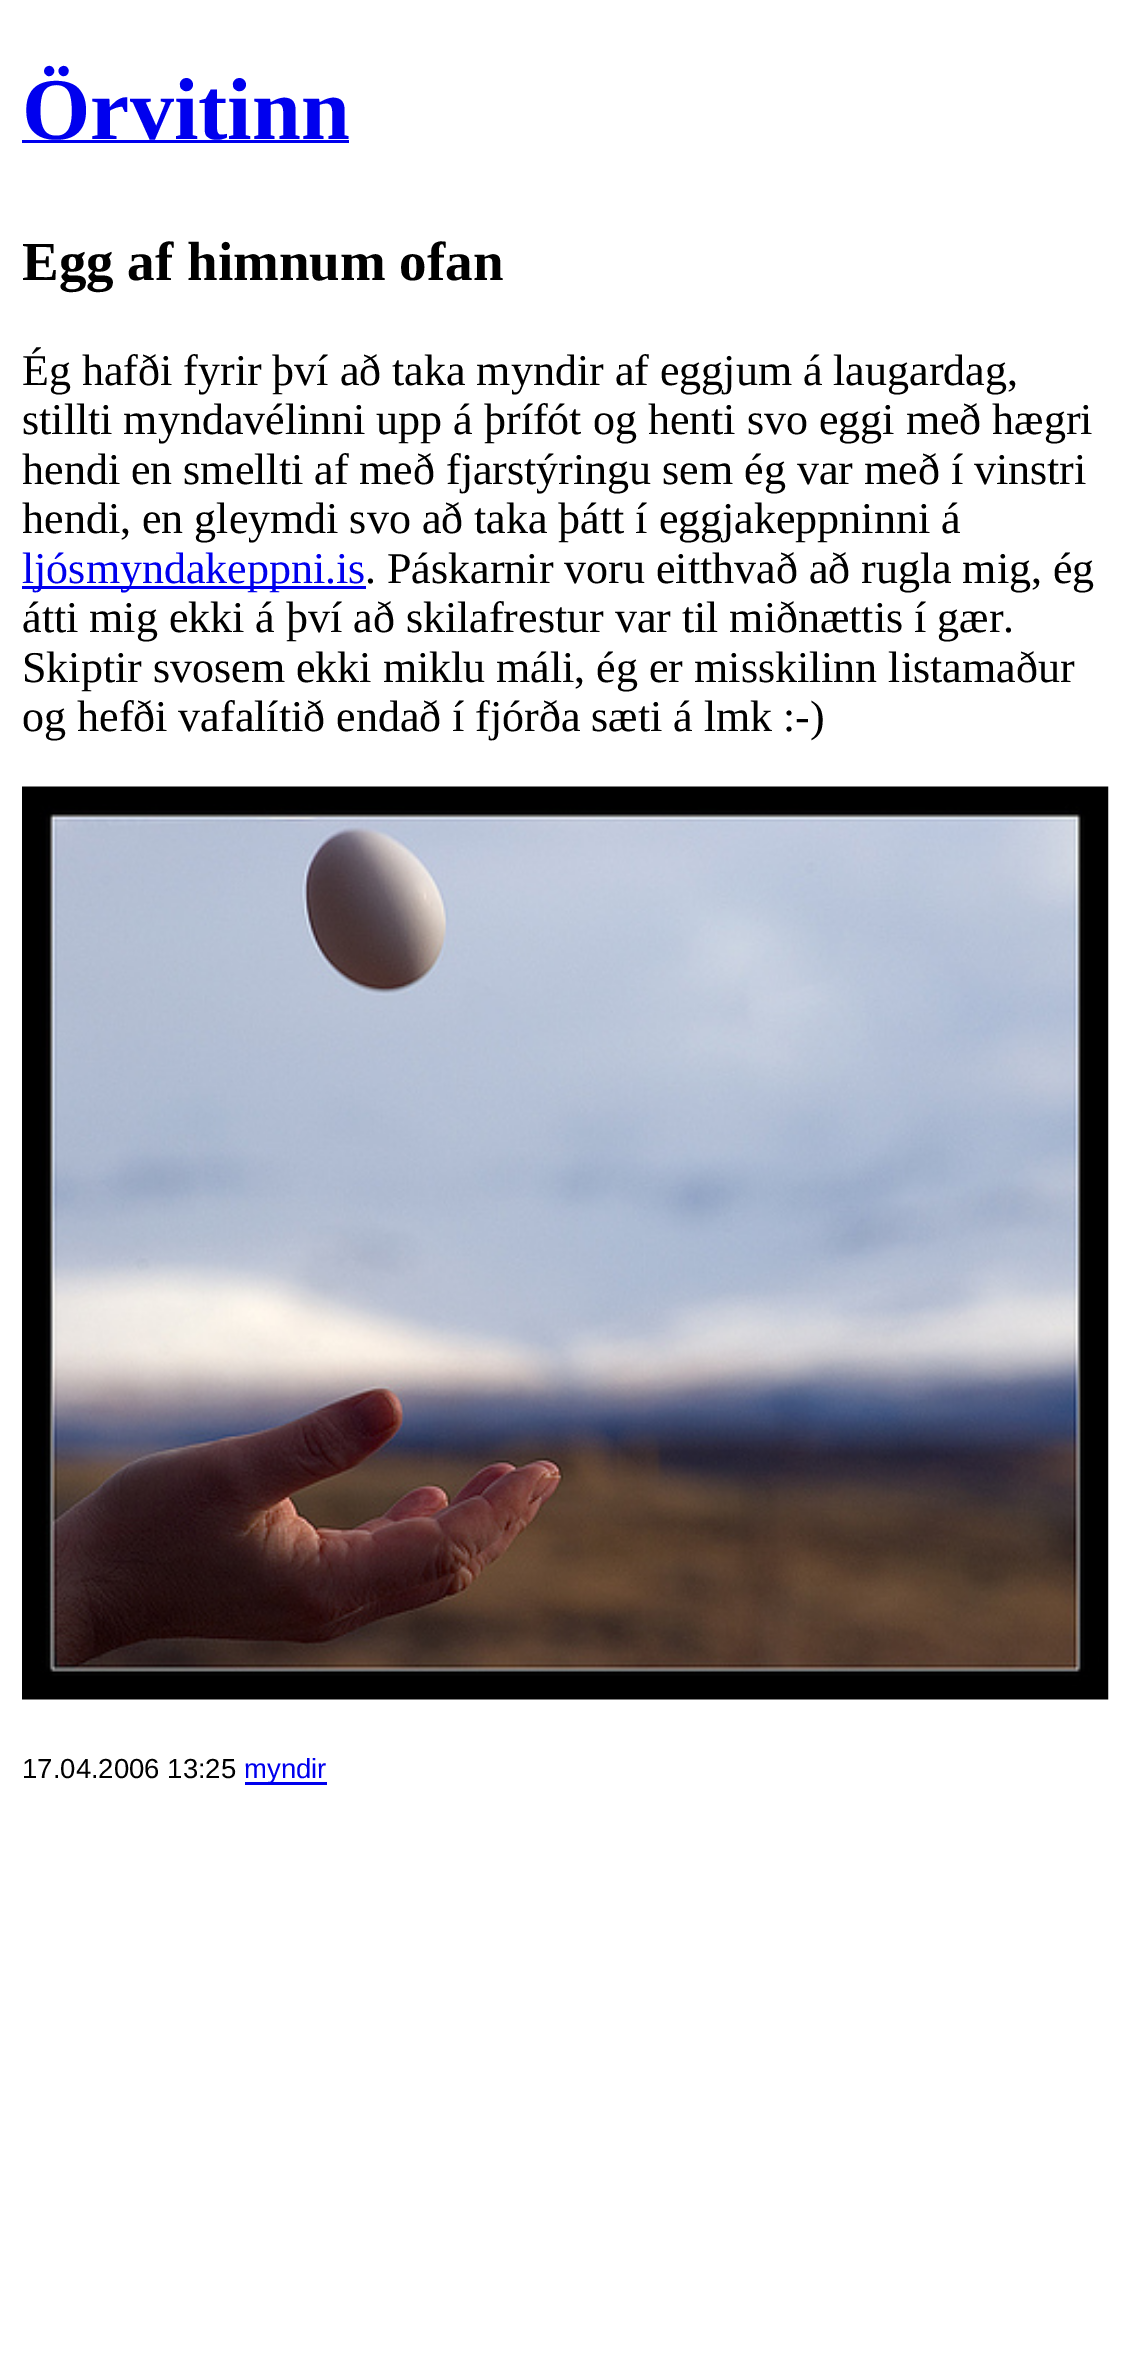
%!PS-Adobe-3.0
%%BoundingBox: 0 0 1129 2363
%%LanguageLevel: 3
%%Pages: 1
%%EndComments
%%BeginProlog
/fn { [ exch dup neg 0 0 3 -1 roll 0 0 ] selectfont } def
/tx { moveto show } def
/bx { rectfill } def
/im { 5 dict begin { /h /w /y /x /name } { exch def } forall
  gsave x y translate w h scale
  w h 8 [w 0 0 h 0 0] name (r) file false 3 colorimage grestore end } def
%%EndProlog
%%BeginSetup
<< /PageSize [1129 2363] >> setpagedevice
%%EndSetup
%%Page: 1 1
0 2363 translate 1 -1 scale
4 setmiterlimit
1 setgray
0 0 1129 2363 bx
/LiberationSerif-Bold 88 fn
0 0 0.933 setrgbcolor
(Örvitinn) 22 139 tx
22 140 327 3 bx
/LiberationSerif-Bold 55 fn
0 setgray
(Egg af himnum ofan) 22 280 tx
/LiberationSerif-Regular 44 fn
(Ég hafði fyrir því að taka myndir af eggjum á laugardag,) 22 385 tx
(stillti myndavélinni upp á þrífót og henti svo eggi með hægri) 22 434 tx
(hendi en smellti af með fjarstýringu sem ég var með í vinstri) 22 484 tx
(hendi, en gleymdi svo að taka þátt í eggjakeppninni á) 22 533 tx
0 0 0.933 setrgbcolor
22 586 344 3 bx
(ljósmyndakeppni.is) 22 583 tx
0 setgray
(. Páskarnir voru eitthvað að rugla mig, ég) 365 583 tx
(átti mig ekki á því að skilafrestur var til miðnættis í gær.) 22 632 tx
(Skiptir svosem ekki miklu máli, ég er misskilinn listamaður) 22 682 tx
(og hefði vafalítið endað í fjórða sæti á lmk :-\)) 22 731 tx
(image0.raw) 22 786 1087 914 im
/LiberationSans-Regular 27.5 fn
(17.04.2006 13:25) 22 1778 tx
0 0 0.933 setrgbcolor
245 1782 82 3 bx
(myndir) 244 1778 tx
showpage
%%EOF
